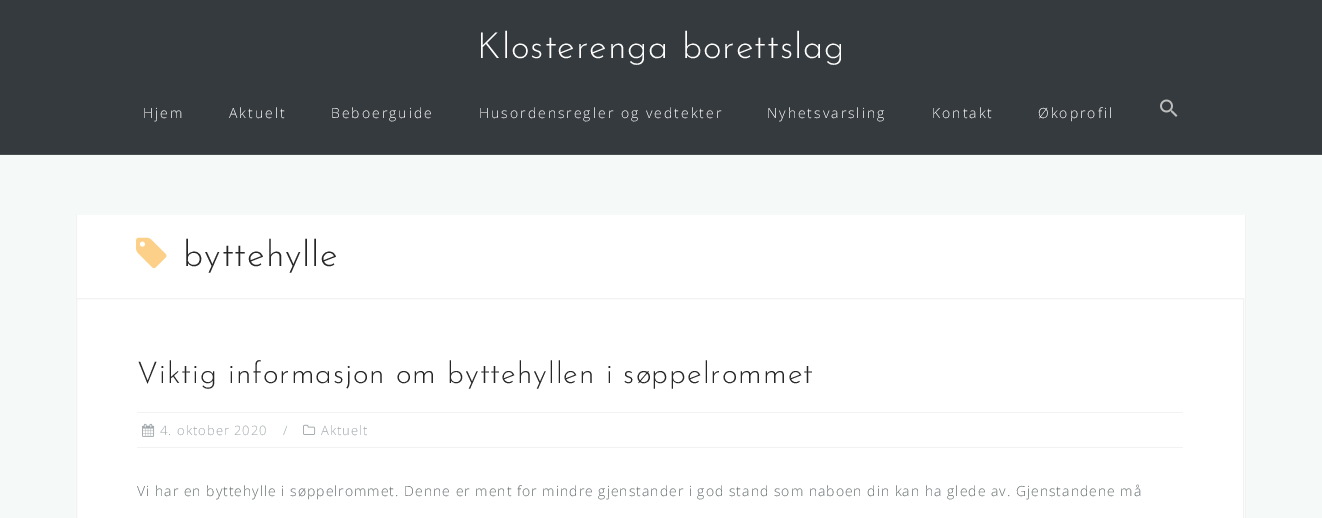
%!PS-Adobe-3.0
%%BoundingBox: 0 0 1322 518
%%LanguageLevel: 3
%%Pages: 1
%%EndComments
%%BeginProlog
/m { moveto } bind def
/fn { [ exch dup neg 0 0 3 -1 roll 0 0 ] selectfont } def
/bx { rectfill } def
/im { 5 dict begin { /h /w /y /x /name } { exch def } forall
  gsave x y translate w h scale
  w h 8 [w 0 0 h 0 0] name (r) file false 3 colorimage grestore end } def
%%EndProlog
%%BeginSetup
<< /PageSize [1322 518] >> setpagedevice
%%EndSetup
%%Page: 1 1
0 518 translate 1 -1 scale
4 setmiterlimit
0.961 0.976 0.973 setrgbcolor
0 0 1322 518 bx
0.208 0.227 0.243 setrgbcolor
0 0 1322 154 bx
0.286 0.306 0.318 setrgbcolor
0 154 1322 1 bx
/JosefinSans-Thin 36 fn
1 setgray
477 58 m 1 0 (Klosterenga borettslag) ashow
/OpenSans-Light 14 fn
143 118 m 2 0 (Hjem) ashow
229 118 m 2 0 (Aktuelt) ashow
331 118 m 2 0 (Beboerguide) ashow
479 118 m 2 0 (Husordensregler og vedtekter) ashow
767 118 m 2 0 (Nyhetsvarsling) ashow
932 118 m 2 0 (Kontakt) ashow
1038 118 m 2 0 (Økoprofil) ashow
(image0.raw) 1160 99 18 18 im
77 215 1168 303 bx
0.949 0.949 0.953 setrgbcolor
1245 215 1 303 bx
76 215 1 83 bx
(image1.raw) 136 237 31 32 im
/JosefinSans-Thin 36 fn
0.153 setgray
183 266 m 1 0 (byttehylle) ashow
0.949 0.949 0.953 setrgbcolor
76.5 298.5 1167 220 rectstroke
/JosefinSans-Thin 30 fn
0.153 setgray
137 383 m 1 0 (Viktig informasjon om byttehyllen i søppelrommet) ashow
0.949 0.949 0.953 setrgbcolor
137 412 1046 1 bx
137 447 1046 1 bx
(image2.raw) 142 423 13 14 im
/OpenSans-Light 13 fn
0.627 0.659 0.671 setrgbcolor
160 435 m 1 0 (4. oktober 2020) ashow
283 435 m 1 0 (/) ashow
(image3.raw) 303 424 13 11 im
321 435 m 1 0 (Aktuelt) ashow
/OpenSans-Light 14 fn
0.396 0.427 0.427 setrgbcolor
137 496 m 1 0 (Vi har en byttehylle i søppelrommet. Denne er ment for mindre gjenstander i god stand som naboen din kan ha glede av. Gjenstandene må) ashow
showpage
%%EOF
